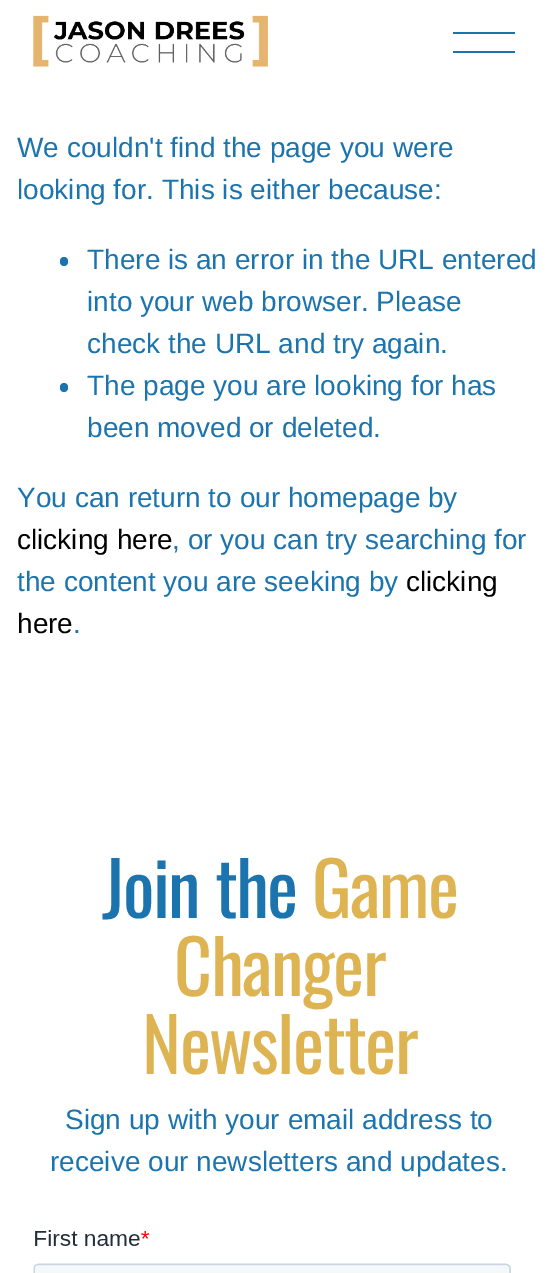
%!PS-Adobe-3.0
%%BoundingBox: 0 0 558 1273
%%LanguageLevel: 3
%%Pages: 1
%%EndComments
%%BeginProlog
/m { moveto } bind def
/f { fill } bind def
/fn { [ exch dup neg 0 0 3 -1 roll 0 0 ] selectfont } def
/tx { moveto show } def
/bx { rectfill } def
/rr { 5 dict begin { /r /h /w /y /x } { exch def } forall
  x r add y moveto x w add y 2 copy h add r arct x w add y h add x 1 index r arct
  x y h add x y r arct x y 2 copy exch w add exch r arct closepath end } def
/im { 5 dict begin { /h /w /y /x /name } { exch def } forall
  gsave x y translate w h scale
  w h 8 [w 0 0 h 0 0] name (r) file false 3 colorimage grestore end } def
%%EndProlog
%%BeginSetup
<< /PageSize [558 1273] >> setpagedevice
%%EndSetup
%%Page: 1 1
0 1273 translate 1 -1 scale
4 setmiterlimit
1 setgray
0 0 558 1273 bx
(image0.raw) 33 15 235 52 im
0.106 0.455 0.678 setrgbcolor
453 32 62 2 bx
453 51 62 2 bx
/Arimo-Regular 28 fn
(We couldn't find the page you were) 17 157 tx
(looking for. This is either because:) 17 199 tx
60 257 8 9 4 rr f
(There is an error in the URL entered) 87 269 tx
(into your web browser. Please) 87 311 tx
(check the URL and try again.) 87 353 tx
60 383 8 9 4 rr f
(The page you are looking for has) 87 395 tx
(been moved or deleted.) 87 437 tx
(You can return to our homepage by) 17 507 tx
0 setgray
(clicking here) 17 549 tx
0.106 0.455 0.678 setrgbcolor
(, or you can try searching for) 172 549 tx
(the content you are seeking by) 17 591 tx
0 setgray
(clicking) 406 591 tx
(here) 17 633 tx
0.106 0.455 0.678 setrgbcolor
(.) 73 633 tx
/Oswald-Regular 74 fn
102 918 m -1.5 0 (Join the) ashow
0.871 0.706 0.322 setrgbcolor
312 918 m -1.5 0 (Game) ashow
174 996 m -1.5 0 (Changer) ashow
142 1074 m -1.5 0 (Newsletter) ashow
/Arimo-Regular 28 fn
0.106 0.455 0.678 setrgbcolor
(Sign up with your email address to) 65 1129 tx
(receive our newsletters and updates.) 50 1171 tx
(image1.raw) 33 1230 478 43 im
showpage
%%EOF
